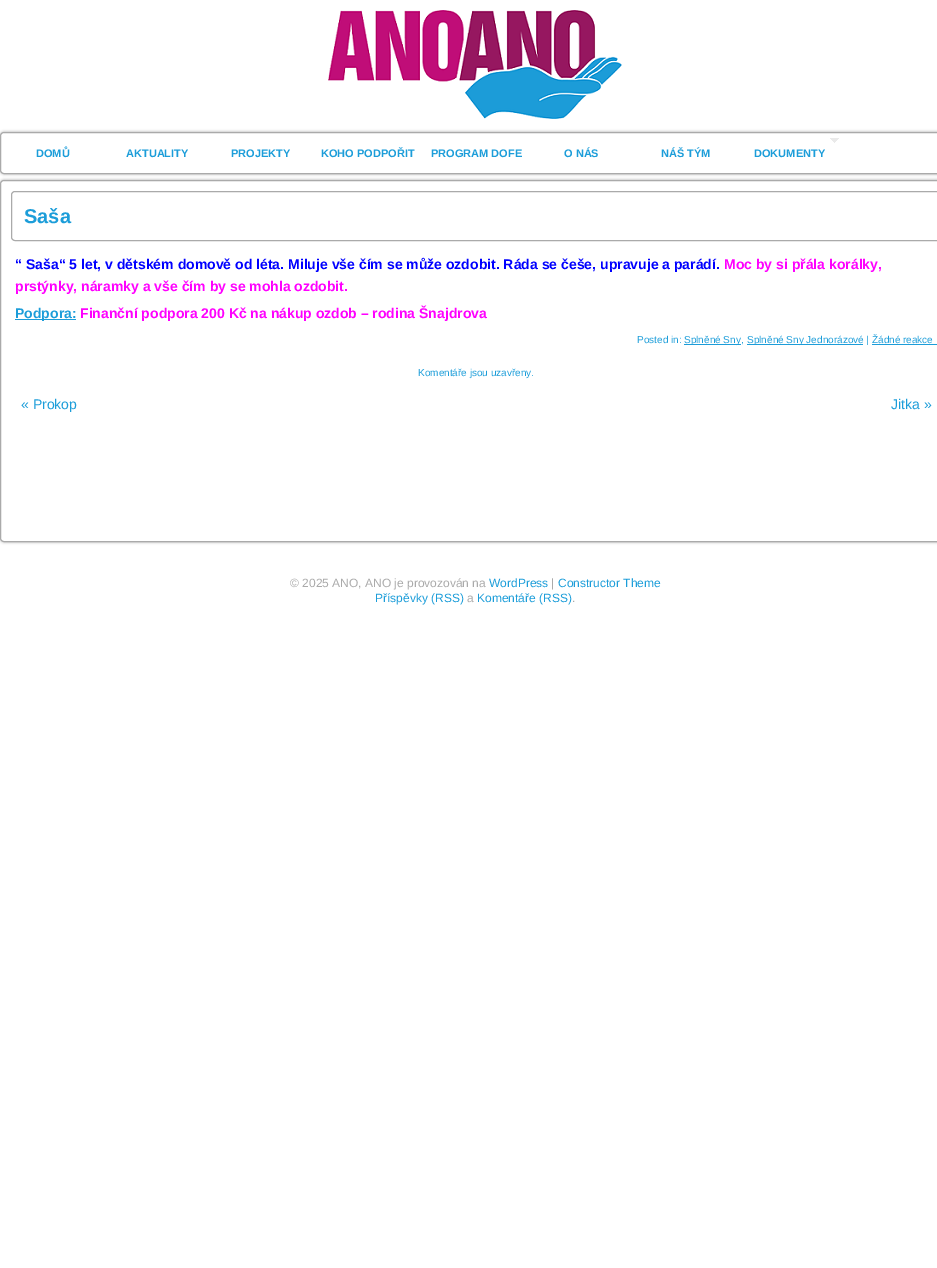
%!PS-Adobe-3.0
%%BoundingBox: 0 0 937 1268
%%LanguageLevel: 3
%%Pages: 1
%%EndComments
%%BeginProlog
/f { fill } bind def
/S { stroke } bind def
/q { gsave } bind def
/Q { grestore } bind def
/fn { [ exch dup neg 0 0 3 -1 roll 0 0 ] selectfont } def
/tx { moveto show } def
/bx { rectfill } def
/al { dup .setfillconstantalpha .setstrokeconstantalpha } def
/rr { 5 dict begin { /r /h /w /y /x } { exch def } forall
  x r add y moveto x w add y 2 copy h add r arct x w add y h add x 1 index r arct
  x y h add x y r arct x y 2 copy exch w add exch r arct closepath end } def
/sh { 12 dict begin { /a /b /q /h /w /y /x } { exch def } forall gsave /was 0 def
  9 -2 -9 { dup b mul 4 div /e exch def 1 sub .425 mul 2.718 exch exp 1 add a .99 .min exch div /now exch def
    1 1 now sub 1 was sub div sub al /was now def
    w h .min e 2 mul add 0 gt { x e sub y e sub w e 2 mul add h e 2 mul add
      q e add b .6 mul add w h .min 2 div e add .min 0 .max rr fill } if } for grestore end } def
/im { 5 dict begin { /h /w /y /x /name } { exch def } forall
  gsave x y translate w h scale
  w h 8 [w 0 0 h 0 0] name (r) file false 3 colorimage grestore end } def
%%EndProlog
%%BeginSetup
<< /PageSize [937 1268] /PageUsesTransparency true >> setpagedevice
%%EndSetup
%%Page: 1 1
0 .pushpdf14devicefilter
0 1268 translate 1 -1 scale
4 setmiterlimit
1 setgray
0 0 937 1268 bx
(image0.raw) 328 10 294 109 im
0.667 setgray
0 132 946 42 4 1.5 1 sh
1 setgray
0.5 132.5 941 41 3.5 rr q f Q
0.667 setgray
S
/LiberationSans-Bold 11 fn
0.11 0.616 0.851 setrgbcolor
(DOMŮ) 36 157 tx
(AKTUALITY) 126 157 tx
(PROJEKTY) 231 157 tx
(KOHO PODPOŘIT) 321 157 tx
(PROGRAM DOFE) 431 157 tx
(O NÁS) 564 157 tx
(NÁŠ TÝM) 661 157 tx
(image1.raw) 830 138 9 5 im
(DOKUMENTY) 754 157 tx
0.667 setgray
0 180 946 362 4 1.5 1 sh
1 setgray
0.5 180.5 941 361 3.5 rr q f Q
0.667 setgray
S
11.5 191.5 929 49 3.5 rr S
/LiberationSans-Bold 20 fn
0.11 0.616 0.851 setrgbcolor
(Saša) 24 223 tx
/LiberationSans-Bold 14 fn
0 0 1 setrgbcolor
(“ Saša“ 5 let, v dětském domově od léta. Miluje vše čím se může ozdobit. Ráda se češe, upravuje a parádí.) 15 269 tx
1 0 1 setrgbcolor
(Moc by si přála korálky,) 724 269 tx
(prstýnky, náramky a vše čím by se mohla ozdobit.) 15 291 tx
0.11 0.616 0.851 setrgbcolor
15 319 61 1 bx
(Podpora:) 15 318 tx
1 0 1 setrgbcolor
(Finanční podpora 200 Kč na nákup ozdob – rodina Šnajdrova) 80 318 tx
/LiberationSans-Regular 10 fn
0.11 0.616 0.851 setrgbcolor
(Posted in:) 637 343 tx
684 344 57 1 bx
(Splněné Sny,) 684 343 tx
747 344 116 1 bx
(Splněné Sny Jednorázové | Žádné reakce) 747 343 tx
872 344 65 1 bx
(Komentáře jsou uzavřeny.) 418 376 tx
/LiberationSans-Regular 14 fn
(« Prokop) 21 409 tx
(Jitka ») 891 409 tx
/LiberationSans-Regular 12 fn
0.667 setgray
(© 2025 ANO, ANO je provozován na) 290 587 tx
0.11 0.616 0.851 setrgbcolor
(WordPress) 489 587 tx
0.667 setgray
(|) 551 587 tx
0.11 0.616 0.851 setrgbcolor
(Constructor Theme) 558 587 tx
(Příspěvky \(RSS\)) 375 602 tx
0.667 setgray
(a) 467 602 tx
0.11 0.616 0.851 setrgbcolor
(Komentáře \(RSS\)) 477 602 tx
0.667 setgray
(.) 572 602 tx
.poppdf14devicefilter showpage
%%EOF
